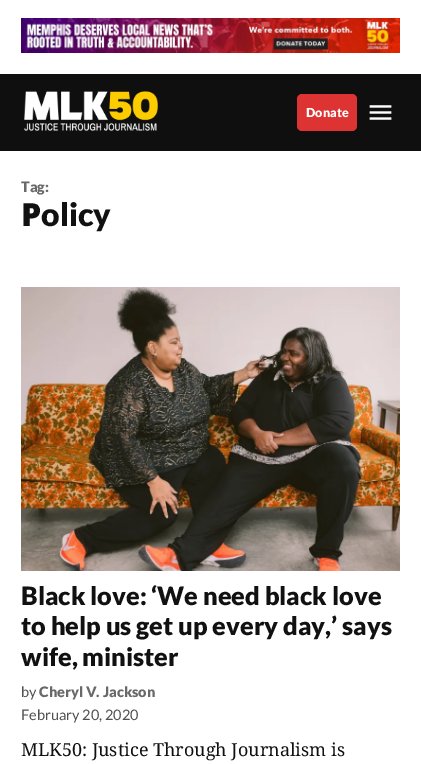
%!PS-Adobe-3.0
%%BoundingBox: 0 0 421 764
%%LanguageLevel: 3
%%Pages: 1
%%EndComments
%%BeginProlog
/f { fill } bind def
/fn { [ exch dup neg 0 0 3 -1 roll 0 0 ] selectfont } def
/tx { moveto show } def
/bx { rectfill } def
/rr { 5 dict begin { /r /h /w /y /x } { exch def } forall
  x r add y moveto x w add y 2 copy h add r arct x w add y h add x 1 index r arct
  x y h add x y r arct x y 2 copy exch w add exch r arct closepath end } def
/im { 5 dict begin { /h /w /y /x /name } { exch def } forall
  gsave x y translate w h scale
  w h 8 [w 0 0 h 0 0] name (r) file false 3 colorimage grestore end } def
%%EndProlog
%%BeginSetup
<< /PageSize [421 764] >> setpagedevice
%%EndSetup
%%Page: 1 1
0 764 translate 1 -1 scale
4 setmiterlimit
1 setgray
0 0 421 764 bx
(image0.raw) 21 18 379 35 im
0.059 setgray
0 74 421 77 bx
(image1.raw) 24 91 134 40 im
0.867 0.2 0.2 setrgbcolor
297 94 60 37 5 rr f
/Lato-Black 12.5 fn
1 setgray
(Donate) 306 117 tx
(image2.raw) 369 105 23 15 im
/Lato-Black 14.5 fn
0.412 setgray
(Tag:) 21 192 tx
/NotoSans-Black 32 fn
0.067 setgray
(P) 21 226 tx
/Lato-Black 32 fn
(olicy) 41 226 tx
(image3.raw) 21 287 379 284 im
/Lato-Black 25.25 fn
(Black love: ‘We need black love) 21 605 tx
(to help us get up every day,’ says) 21 635 tx
(wife, minister) 21 666 tx
/Lato-Regular 14.5 fn
0.318 setgray
(by) 21 697 tx
/Lato-Black 14.5 fn
0.412 setgray
(Cheryl V. Jackson) 39 697 tx
/Lato-Regular 14.5 fn
0.318 setgray
(February 20, 2020) 21 720 tx
/NotoSerif-Regular 18 fn
0.067 setgray
(MLK50: Justice Through Journalism is) 21 756 tx
showpage
%%EOF
